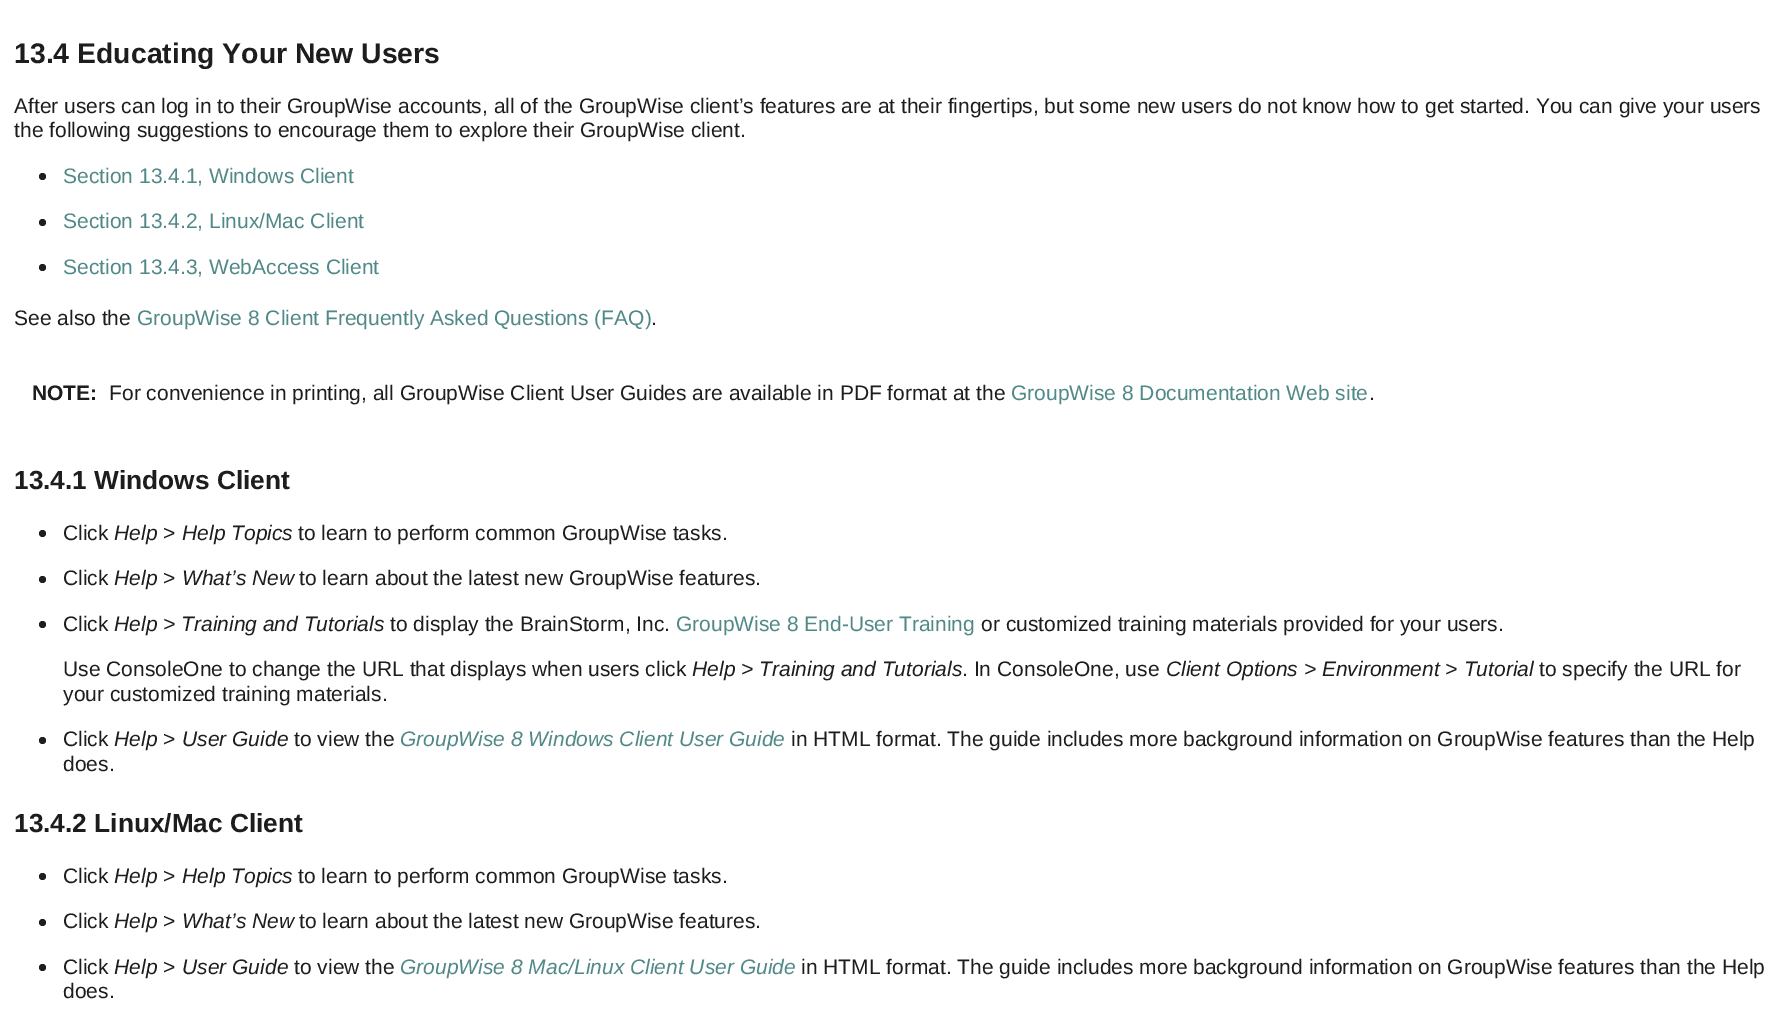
%!PS-Adobe-3.0
%%BoundingBox: 0 0 1787 1020
%%LanguageLevel: 3
%%Pages: 1
%%EndComments
%%BeginProlog
/f { fill } bind def
/fn { [ exch dup neg 0 0 3 -1 roll 0 0 ] selectfont } def
/tx { moveto show } def
/bx { rectfill } def
/ci { newpath 0 360 arc closepath } def
%%EndProlog
%%BeginSetup
<< /PageSize [1787 1020] >> setpagedevice
%%EndSetup
%%Page: 1 1
0 1020 translate 1 -1 scale
4 setmiterlimit
1 setgray
0 0 1787 1020 bx
/LiberationSans-Bold 28.4 fn
0.114 setgray
(13.4 Educating Your New Users) 14 63 tx
/LiberationSans-Regular 21 fn
(After users can log in to their GroupWise accounts, all of the GroupWise client’s features are at their fingertips, but some new users do not know how to get started. You can give your users) 14 113 tx
(the following suggestions to encourage them to explore their GroupWise client.) 14 137 tx
0.118 setgray
42.5 176.5 3.5 ci f
0.318 0.537 0.533 setrgbcolor
(Section 13.4.1, Windows Client) 63 183 tx
0.118 setgray
42.5 222.5 3.5 ci f
0.318 0.537 0.533 setrgbcolor
(Section 13.4.2, Linux/Mac Client) 63 228 tx
0.118 setgray
42.5 267.5 3.5 ci f
0.318 0.537 0.533 setrgbcolor
(Section 13.4.3, WebAccess Client) 63 274 tx
0.114 setgray
(See also the) 14 325 tx
0.318 0.537 0.533 setrgbcolor
(GroupWise 8 Client Frequently Asked Questions \(FAQ\)) 137 325 tx
0.114 setgray
(.) 651 325 tx
/LiberationSans-Bold 21 fn
(NOTE:) 32 400 tx
/LiberationSans-Regular 21 fn
(For convenience in printing, all GroupWise Client User Guides are available in PDF format at the) 109 400 tx
0.318 0.537 0.533 setrgbcolor
(GroupWise 8 Documentation Web site) 1011 400 tx
0.114 setgray
(.) 1369 400 tx
/LiberationSans-Bold 26.25 fn
(13.4.1 Windows Client) 14 489 tx
0.118 setgray
42.5 533.5 3.5 ci f
/LiberationSans-Regular 21 fn
0.114 setgray
(Click) 63 540 tx
/LiberationSans-Italic 21 fn
(Help) 114 540 tx
/LiberationSans-Regular 21 fn
(>) 163 540 tx
/LiberationSans-Italic 21 fn
(Help Topics) 182 540 tx
/LiberationSans-Regular 21 fn
(to learn to perform common GroupWise tasks.) 298 540 tx
0.118 setgray
42.5 579.5 3.5 ci f
0.114 setgray
(Click) 63 585 tx
/LiberationSans-Italic 21 fn
(Help) 114 585 tx
/LiberationSans-Regular 21 fn
(>) 163 585 tx
/LiberationSans-Italic 21 fn
(What’s New) 182 585 tx
/LiberationSans-Regular 21 fn
(to learn about the latest new GroupWise features.) 299 585 tx
0.118 setgray
42.5 624.5 3.5 ci f
0.114 setgray
(Click) 63 631 tx
/LiberationSans-Italic 21 fn
(Help > Training and Tutorials) 114 631 tx
/LiberationSans-Regular 21 fn
(to display the BrainStorm, Inc.) 390 631 tx
0.318 0.537 0.533 setrgbcolor
(GroupWise 8 End-User Training) 676 631 tx
0.114 setgray
(or customized training materials provided for your users.) 981 631 tx
(Use ConsoleOne to change the URL that displays when users click) 63 676 tx
/LiberationSans-Italic 21 fn
(Help > Training and Tutorials) 692 676 tx
/LiberationSans-Regular 21 fn
(. In ConsoleOne, use) 962 676 tx
/LiberationSans-Italic 21 fn
(Client Options > Environment > Tutorial) 1166 676 tx
/LiberationSans-Regular 21 fn
(to specify the URL for) 1539 676 tx
(your customized training materials.) 63 701 tx
0.118 setgray
42.5 740.5 3.5 ci f
0.114 setgray
(Click) 63 746 tx
/LiberationSans-Italic 21 fn
(Help) 114 746 tx
/LiberationSans-Regular 21 fn
(>) 163 746 tx
/LiberationSans-Italic 21 fn
(User Guide) 182 746 tx
/LiberationSans-Regular 21 fn
(to view the) 294 746 tx
/LiberationSans-Italic 21 fn
0.318 0.537 0.533 setrgbcolor
(GroupWise 8 Windows Client User Guide) 400 746 tx
/LiberationSans-Regular 21 fn
0.114 setgray
(in HTML format. The guide includes more background information on GroupWise features than the Help) 791 746 tx
(does.) 63 771 tx
/LiberationSans-Bold 26.25 fn
(13.4.2 Linux/Mac Client) 14 832 tx
0.118 setgray
42.5 876.5 3.5 ci f
/LiberationSans-Regular 21 fn
0.114 setgray
(Click) 63 883 tx
/LiberationSans-Italic 21 fn
(Help) 114 883 tx
/LiberationSans-Regular 21 fn
(>) 163 883 tx
/LiberationSans-Italic 21 fn
(Help Topics) 182 883 tx
/LiberationSans-Regular 21 fn
(to learn to perform common GroupWise tasks.) 298 883 tx
0.118 setgray
42.5 922.5 3.5 ci f
0.114 setgray
(Click) 63 928 tx
/LiberationSans-Italic 21 fn
(Help) 114 928 tx
/LiberationSans-Regular 21 fn
(>) 163 928 tx
/LiberationSans-Italic 21 fn
(What’s New) 182 928 tx
/LiberationSans-Regular 21 fn
(to learn about the latest new GroupWise features.) 299 928 tx
0.118 setgray
42.5 967.5 3.5 ci f
0.114 setgray
(Click) 63 974 tx
/LiberationSans-Italic 21 fn
(Help) 114 974 tx
/LiberationSans-Regular 21 fn
(>) 163 974 tx
/LiberationSans-Italic 21 fn
(User Guide) 182 974 tx
/LiberationSans-Regular 21 fn
(to view the) 294 974 tx
/LiberationSans-Italic 21 fn
0.318 0.537 0.533 setrgbcolor
(GroupWise 8 Mac/Linux Client User Guide) 400 974 tx
/LiberationSans-Regular 21 fn
0.114 setgray
(in HTML format. The guide includes more background information on GroupWise features than the Help) 801 974 tx
(does.) 63 998 tx
showpage
%%EOF
